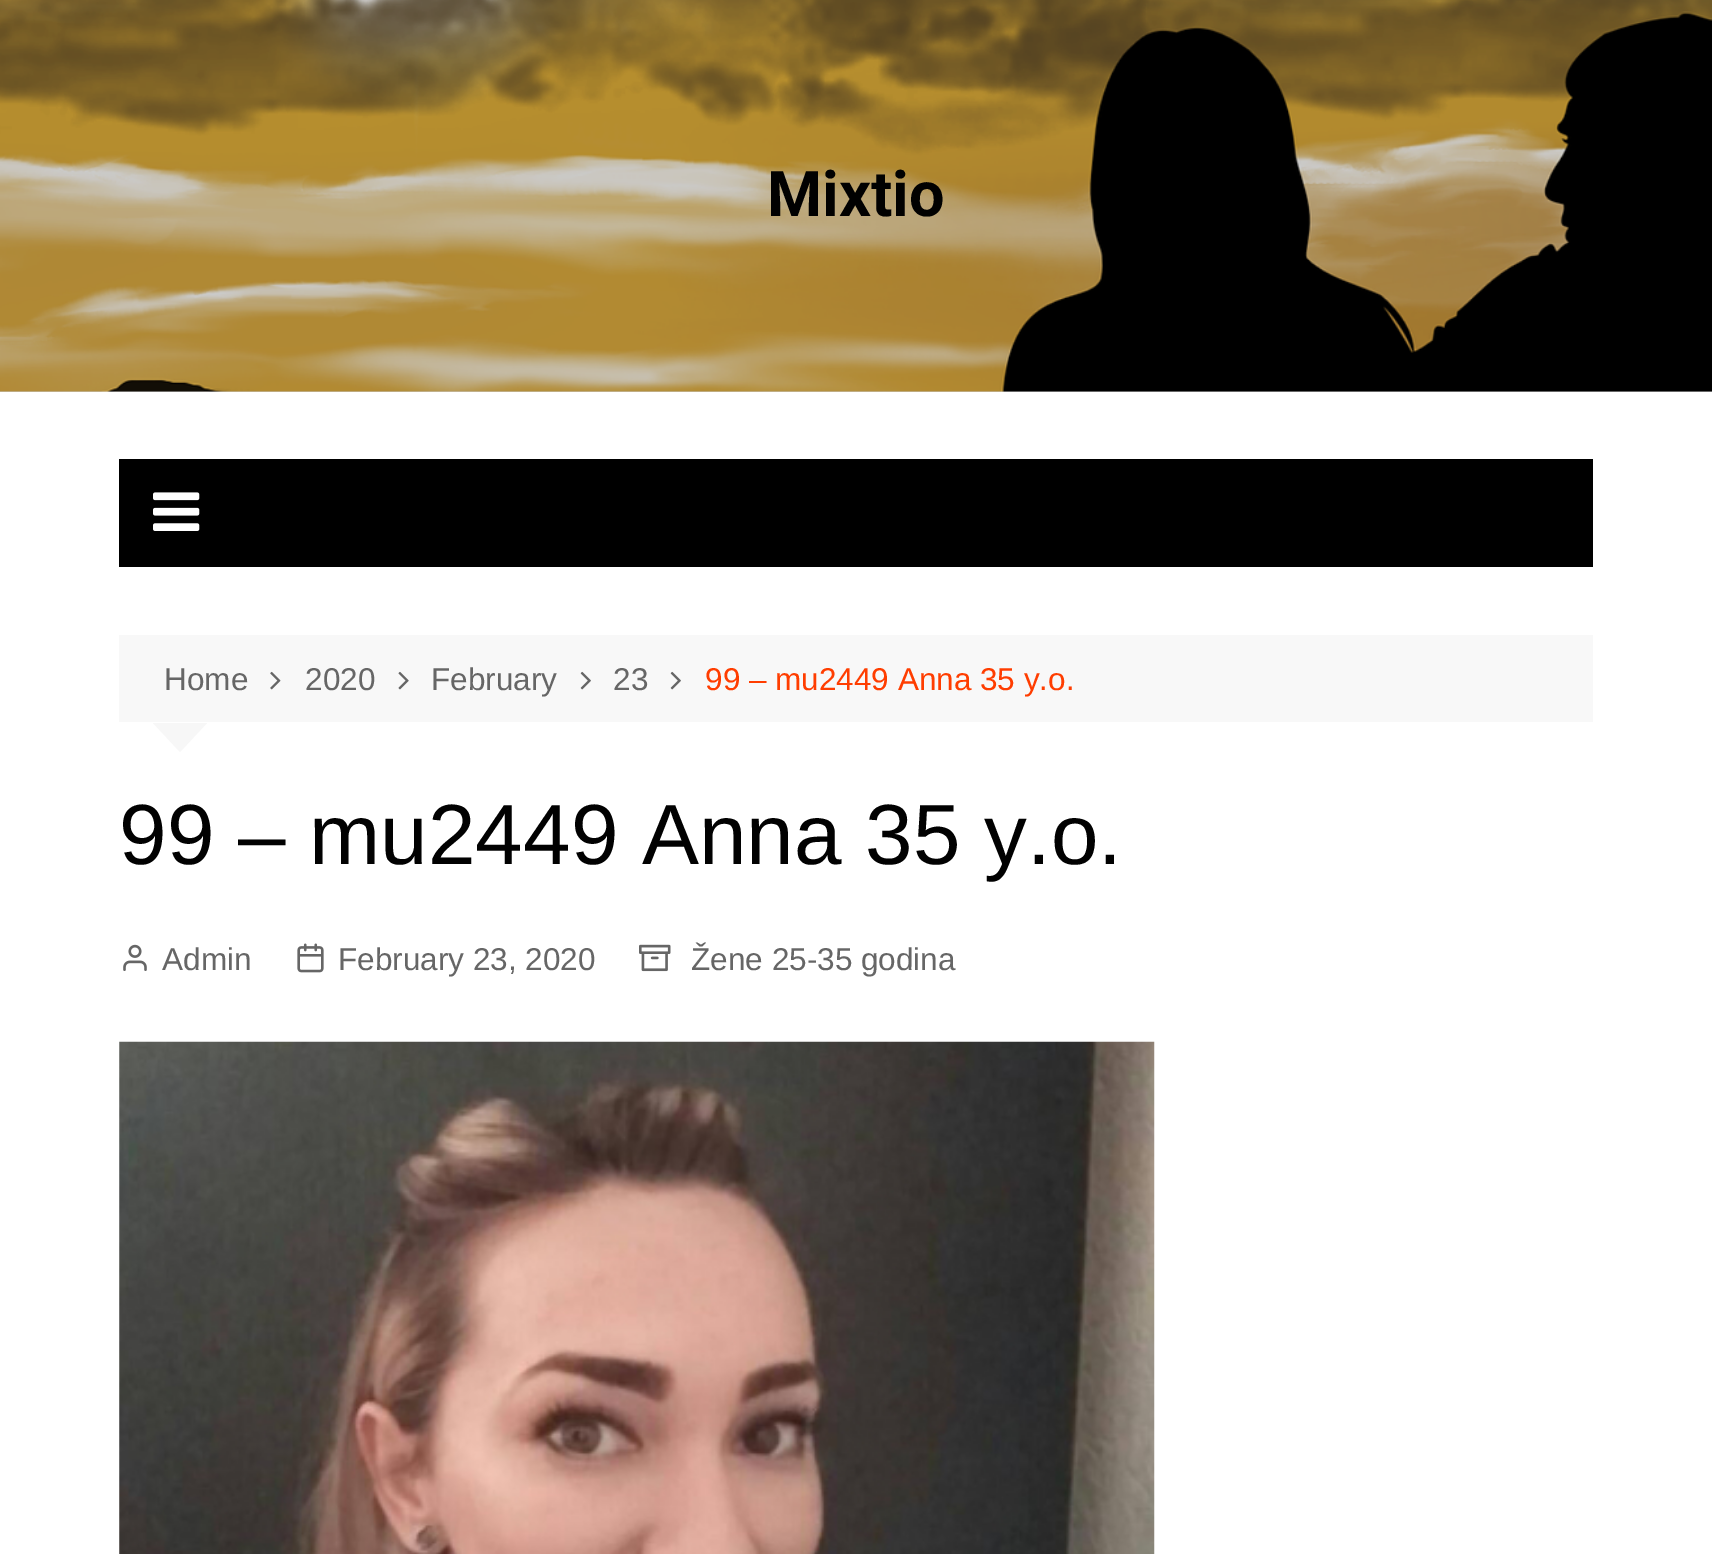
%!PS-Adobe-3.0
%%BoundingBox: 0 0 1712 1554
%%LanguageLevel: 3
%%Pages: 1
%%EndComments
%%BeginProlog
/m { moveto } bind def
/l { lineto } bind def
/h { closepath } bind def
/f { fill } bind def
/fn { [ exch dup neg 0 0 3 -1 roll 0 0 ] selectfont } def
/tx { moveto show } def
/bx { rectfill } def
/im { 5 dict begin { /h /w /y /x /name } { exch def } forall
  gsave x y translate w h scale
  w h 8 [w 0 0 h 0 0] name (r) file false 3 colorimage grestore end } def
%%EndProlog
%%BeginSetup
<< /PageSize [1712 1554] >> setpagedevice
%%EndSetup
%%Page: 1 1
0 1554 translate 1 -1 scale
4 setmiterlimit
1 setgray
0 0 1712 1554 bx
0.8 setgray
0 391 1712 1 bx
(image0.raw) 0 0 1712 392 im
/Roboto-Bold 63 fn
0.004 setgray
(Mixtio) 767 216 tx
0 setgray
119 459 1474 108 bx
(image1.raw) 153 492 47 39 im
0.973 setgray
119 635 1474 87 bx
/LiberationSans-Regular 31.5 fn
0.4 setgray
(Home) 164 690 tx
(image2.raw) 270 671 11 19 im
(2020) 305 690 tx
(image3.raw) 398 671 11 19 im
(February) 431 690 tx
(image4.raw) 580 671 11 19 im
(23) 613 690 tx
(image4.raw) 670 671 11 19 im
1 0.239 0 setrgbcolor
(99 – mu2449 Anna 35 y.o.) 705 690 tx
0.969 setgray
153 723 m 207 723 l 180 752 l h f
/LiberationSans-Regular 85.5 fn
0.004 setgray
(99 – mu2449 Anna 35 y.o.) 119 864 tx
(image5.raw) 123 944 24 27 im
/LiberationSans-Regular 31.5 fn
0.4 setgray
(Admin) 162 970 tx
(image6.raw) 297 943 27 30 im
(February 23, 2020) 338 970 tx
(image7.raw) 639 944 32 28 im
(Žene 25-35 godina) 691 970 tx
(image8.raw) 119 1041 1036 513 im
showpage
%%EOF
